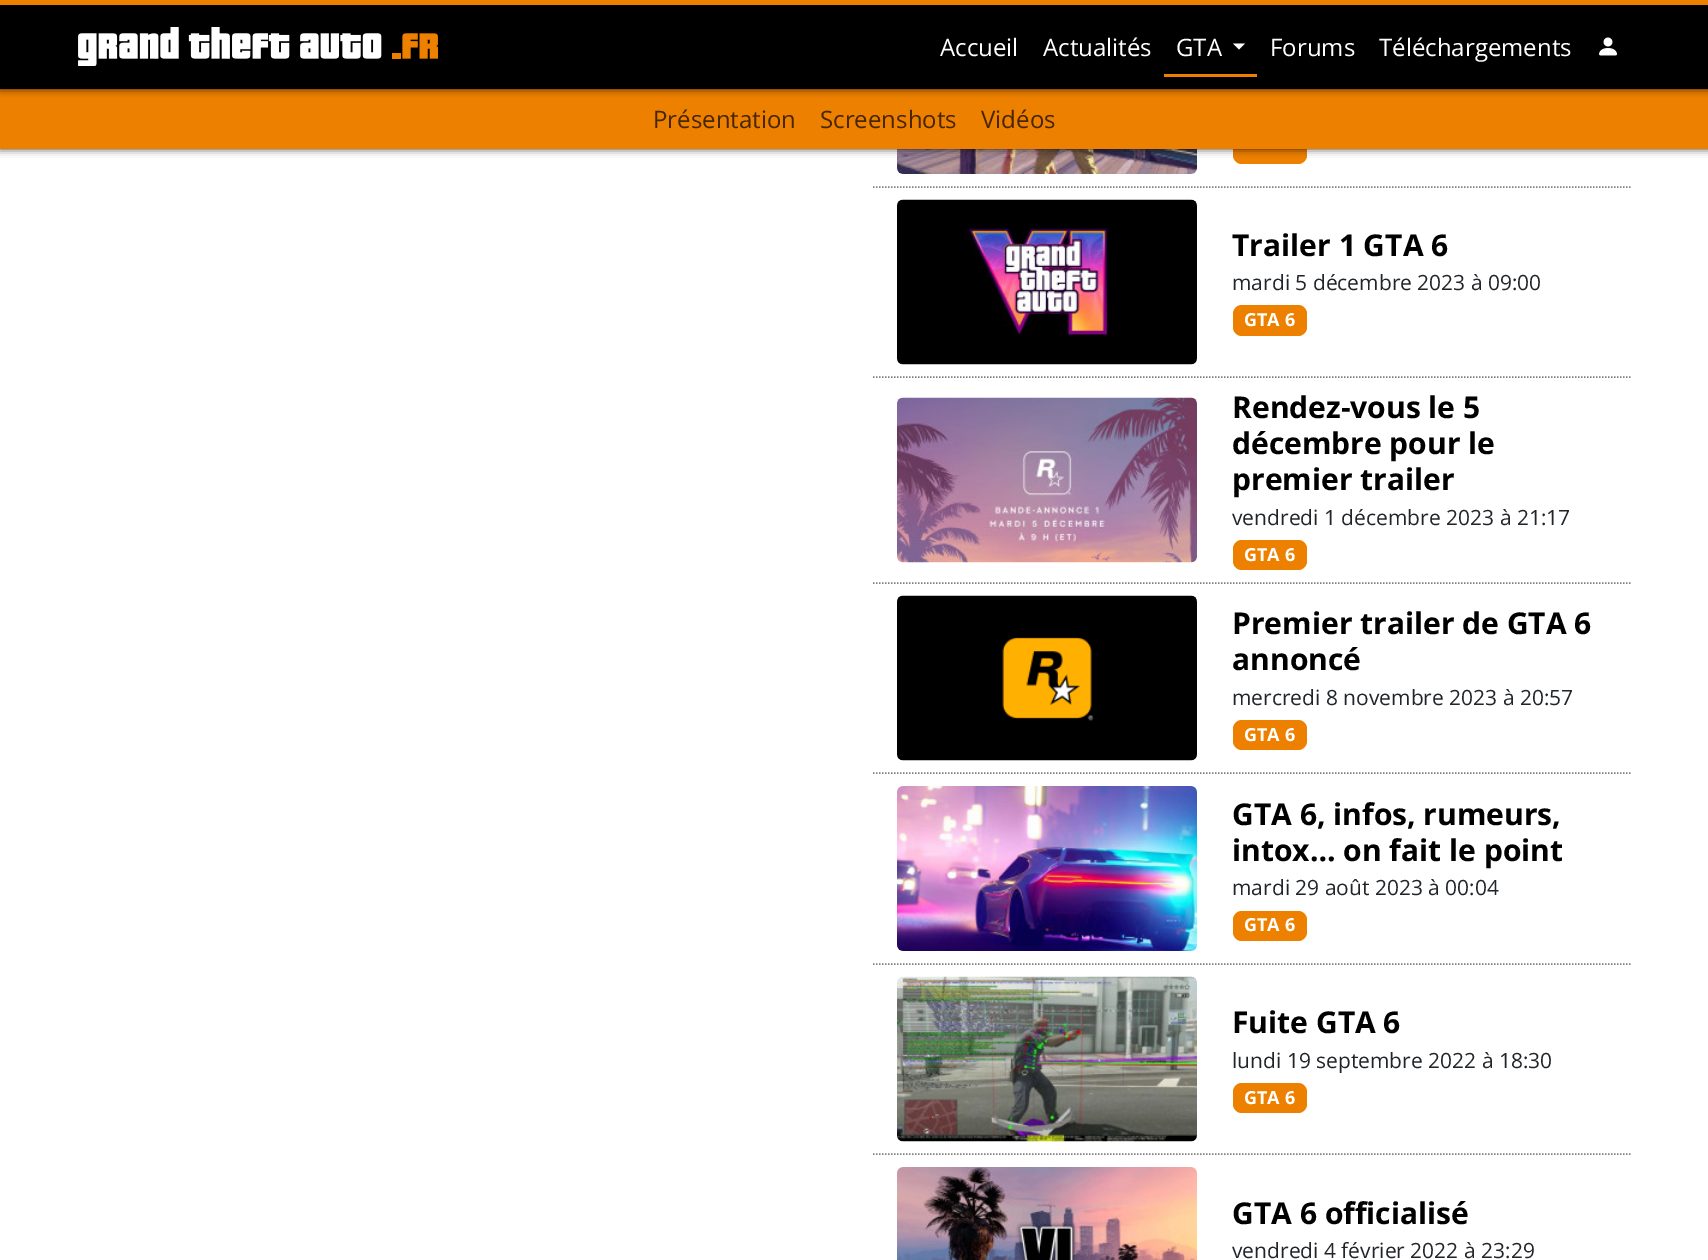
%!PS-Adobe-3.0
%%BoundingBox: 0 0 1708 1260
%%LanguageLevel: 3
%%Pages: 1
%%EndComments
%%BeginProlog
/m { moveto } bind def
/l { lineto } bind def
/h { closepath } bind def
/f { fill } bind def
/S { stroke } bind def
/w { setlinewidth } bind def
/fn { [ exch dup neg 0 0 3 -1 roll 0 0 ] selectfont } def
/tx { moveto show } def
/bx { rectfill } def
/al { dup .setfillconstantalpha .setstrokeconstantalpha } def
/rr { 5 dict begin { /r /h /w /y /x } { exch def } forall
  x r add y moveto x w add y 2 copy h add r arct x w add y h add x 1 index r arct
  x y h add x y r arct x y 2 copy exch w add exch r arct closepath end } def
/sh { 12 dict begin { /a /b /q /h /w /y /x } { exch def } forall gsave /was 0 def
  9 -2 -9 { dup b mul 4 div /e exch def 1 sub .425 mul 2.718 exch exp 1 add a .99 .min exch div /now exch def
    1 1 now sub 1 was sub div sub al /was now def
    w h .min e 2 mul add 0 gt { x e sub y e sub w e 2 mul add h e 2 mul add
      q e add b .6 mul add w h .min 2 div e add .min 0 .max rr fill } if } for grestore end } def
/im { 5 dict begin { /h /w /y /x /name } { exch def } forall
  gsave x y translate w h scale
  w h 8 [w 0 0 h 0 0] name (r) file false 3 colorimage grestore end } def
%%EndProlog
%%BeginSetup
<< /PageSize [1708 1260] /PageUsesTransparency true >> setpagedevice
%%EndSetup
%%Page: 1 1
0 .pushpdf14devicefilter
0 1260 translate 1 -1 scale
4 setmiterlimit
1 setgray
0 0 1708 1260 bx
(image2.raw) 897 149 300 25 im
0.933 0.502 0 setrgbcolor
1233 132 74 32 9 rr f
0 setgray
0 89 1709 60 0 4 0.75 sh
0.933 0.502 0 setrgbcolor
0 89 1708 60 bx
0 setgray
0 0 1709 89 0 4 0.75 sh
0 5 1708 84 bx
0.933 0.502 0 setrgbcolor
0 0 1708 5 bx
(image0.raw) 78 27 360 39 im
/OpenSans-Regular 24 fn
1 setgray
(Accueil) 940 56 tx
(Actualités) 1043 56 tx
0.933 0.502 0 setrgbcolor
1164 74 93 3 bx
1 setgray
(GTA) 1176 56 tx
1233 43.5 m 1245 43.5 l 1239 49.5 l h f
(Forums) 1270 56 tx
(Téléchargements) 1379 56 tx
(image1.raw) 1599 37 18 19 im
0.278 0.149 0 setrgbcolor
(Présentation) 653 128 tx
(Screenshots) 820 128 tx
(Vidéos) 981 128 tx
0.502 setgray
1.5 w
[1.5 1.5] 0 setdash
873 187 m 1632 187 l S
873 377 m 1632 377 l S
(image3.raw) 897 199 300 166 im
/OpenSans-Bold 30 fn
0 setgray
(Trailer 1 GTA 6) 1232 256 tx
/OpenSans-Regular 21 fn
0.129 0.145 0.161 setrgbcolor
(mardi 5 décembre 2023 à 09:00) 1232 290 tx
0.933 0.502 0 setrgbcolor
1233 305 74 31 9 rr f
/OpenSans-Bold 18 fn
1 setgray
(GTA 6) 1244 326 tx
0.502 setgray
873 583 m 1632 583 l S
(image4.raw) 897 397 300 166 im
/OpenSans-Bold 30 fn
0 setgray
(Rendez-vous le 5) 1232 418 tx
(décembre pour le) 1232 454 tx
(premier trailer) 1232 490 tx
/OpenSans-Regular 21 fn
0.129 0.145 0.161 setrgbcolor
(vendredi 1 décembre 2023 à 21:17) 1232 525 tx
0.933 0.502 0 setrgbcolor
1233 540 74 30 9 rr f
/OpenSans-Bold 18 fn
1 setgray
(GTA 6) 1244 561 tx
0.502 setgray
873 773 m 1632 773 l S
(image5.raw) 897 595 300 166 im
/OpenSans-Bold 30 fn
0 setgray
(Premier trailer de GTA 6) 1232 634 tx
(annoncé) 1232 670 tx
/OpenSans-Regular 21 fn
0.129 0.145 0.161 setrgbcolor
(mercredi 8 novembre 2023 à 20:57) 1232 705 tx
0.933 0.502 0 setrgbcolor
1233 720 74 30 9 rr f
/OpenSans-Bold 18 fn
1 setgray
(GTA 6) 1244 741 tx
0.502 setgray
873 964 m 1632 964 l S
(image6.raw) 897 786 300 165 im
/OpenSans-Bold 30 fn
0 setgray
(GTA 6, infos, rumeurs,) 1232 825 tx
(intox… on fait le point) 1232 861 tx
/OpenSans-Regular 21 fn
0.129 0.145 0.161 setrgbcolor
(mardi 29 août 2023 à 00:04) 1232 895 tx
0.933 0.502 0 setrgbcolor
1233 911 74 30 9 rr f
/OpenSans-Bold 18 fn
1 setgray
(GTA 6) 1244 931 tx
0.502 setgray
873 1154 m 1632 1154 l S
(image7.raw) 897 976 300 166 im
/OpenSans-Bold 30 fn
0 setgray
(Fuite GTA 6) 1232 1033 tx
/OpenSans-Regular 21 fn
0.129 0.145 0.161 setrgbcolor
(lundi 19 septembre 2022 à 18:30) 1232 1068 tx
0.933 0.502 0 setrgbcolor
1233 1083 74 30 9 rr f
/OpenSans-Bold 18 fn
1 setgray
(GTA 6) 1244 1104 tx
(image8.raw) 897 1167 300 93 im
/OpenSans-Bold 30 fn
0 setgray
(GTA 6 officialisé) 1232 1224 tx
/OpenSans-Regular 21 fn
0.129 0.145 0.161 setrgbcolor
(vendredi 4 février 2022 à 23:29) 1232 1258 tx
.poppdf14devicefilter showpage
%%EOF
